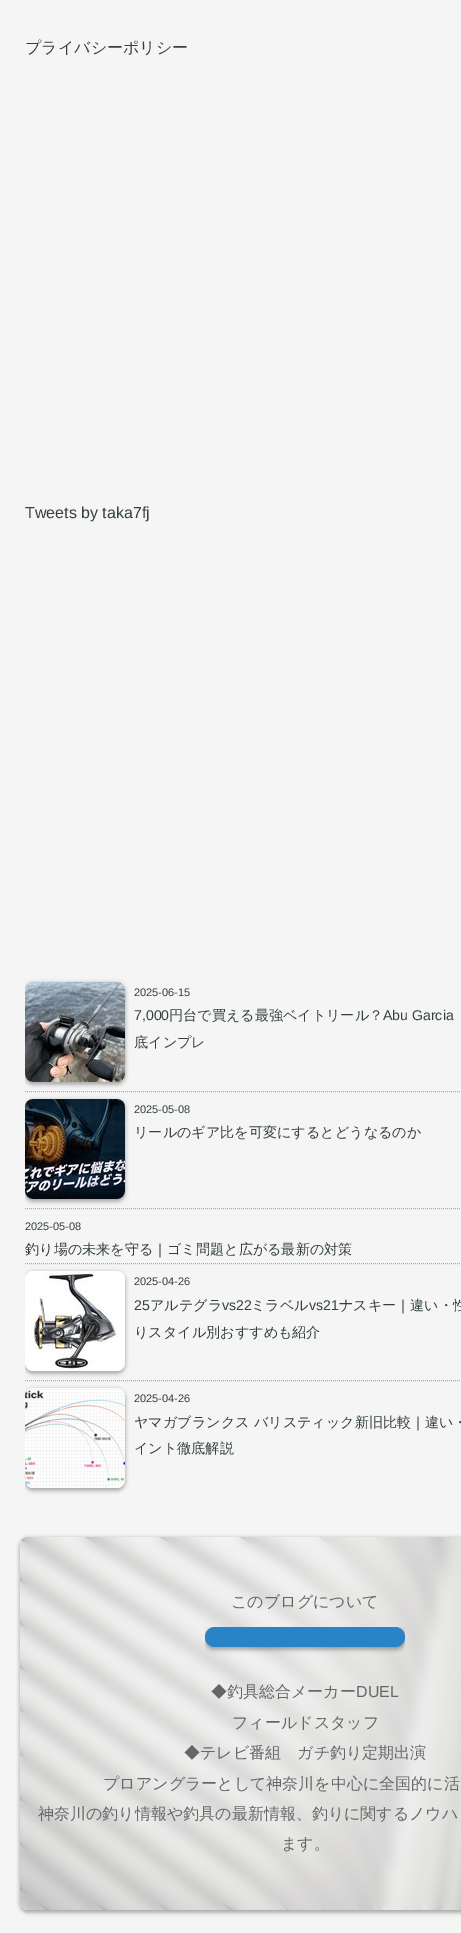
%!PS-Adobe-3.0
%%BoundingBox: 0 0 461 1933
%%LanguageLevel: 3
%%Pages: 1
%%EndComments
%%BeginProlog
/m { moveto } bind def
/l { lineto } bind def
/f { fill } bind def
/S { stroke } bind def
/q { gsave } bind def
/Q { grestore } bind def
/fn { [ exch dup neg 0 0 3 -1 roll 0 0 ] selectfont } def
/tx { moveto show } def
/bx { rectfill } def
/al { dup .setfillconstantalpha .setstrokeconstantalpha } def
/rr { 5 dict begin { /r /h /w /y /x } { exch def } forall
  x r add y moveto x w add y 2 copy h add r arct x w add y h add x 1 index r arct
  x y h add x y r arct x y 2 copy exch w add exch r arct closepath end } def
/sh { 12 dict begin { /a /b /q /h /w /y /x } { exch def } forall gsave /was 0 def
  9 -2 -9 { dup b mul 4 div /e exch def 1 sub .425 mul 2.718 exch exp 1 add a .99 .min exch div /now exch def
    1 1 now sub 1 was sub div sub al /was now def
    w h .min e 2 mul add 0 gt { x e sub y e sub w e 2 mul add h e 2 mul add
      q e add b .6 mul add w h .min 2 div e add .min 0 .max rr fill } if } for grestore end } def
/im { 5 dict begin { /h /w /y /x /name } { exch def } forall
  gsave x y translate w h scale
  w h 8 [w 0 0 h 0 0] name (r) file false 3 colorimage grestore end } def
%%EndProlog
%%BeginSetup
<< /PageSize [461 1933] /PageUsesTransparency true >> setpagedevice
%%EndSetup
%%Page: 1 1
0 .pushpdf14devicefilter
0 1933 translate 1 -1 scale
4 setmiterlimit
0.961 setgray
0 0 461 1933 bx
/WenQuanYiZenHei-Medium 16 fn
0.2 0.251 0.239 setrgbcolor
(プライバシーポリシー) 25 53 tx
/LiberationSans-Regular 16 fn
(Tweets by taka7fj) 25 518 tx
0.667 setgray
[1 1] 0 setdash
25 1091.5 m 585 1091.5 l S
q
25 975 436 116 rectclip
0 setgray
25 985 100 100 8 2 0.25 sh
25 982 100 100 8 2 0.15 sh
Q
(image0.raw) 25 982 100 100 im
/LiberationSans-Regular 11 fn
0.2 0.251 0.239 setrgbcolor
(2025-06-15) 134 996 tx
/LiberationSans-Regular 14.1 fn
(7,000) 134 1020 tx
/WenQuanYiZenHei-Medium 14.1 fn
(円台で買える最強ベイトリール？) 169 1020 tx
/LiberationSans-Regular 14.1 fn
(Abu Garcia) 383 1020 tx
/WenQuanYiZenHei-Medium 14.1 fn
(底インプレ) 134 1047 tx
0.667 setgray
25 1208.5 m 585 1208.5 l S
q
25 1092 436 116 rectclip
0 setgray
25 1102 100 100 8 2 0.25 sh
25 1099 100 100 8 2 0.15 sh
Q
(image1.raw) 25 1099 100 100 im
/LiberationSans-Regular 11 fn
0.2 0.251 0.239 setrgbcolor
(2025-05-08) 134 1113 tx
/WenQuanYiZenHei-Medium 14.1 fn
(リールのギア比を可変にするとどうなるのか) 134 1137 tx
0.667 setgray
25 1263.5 m 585 1263.5 l S
/LiberationSans-Regular 11 fn
0.2 0.251 0.239 setrgbcolor
(2025-05-08) 25 1230 tx
/WenQuanYiZenHei-Medium 14.1 fn
(釣り場の未来を守る｜ゴミ問題と広がる最新の対策) 25 1254 tx
0.667 setgray
25 1380.5 m 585 1380.5 l S
q
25 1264 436 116 rectclip
0 setgray
25 1274 100 100 8 2 0.25 sh
25 1271 100 100 8 2 0.15 sh
Q
(image2.raw) 25 1271 100 100 im
/LiberationSans-Regular 11 fn
0.2 0.251 0.239 setrgbcolor
(2025-04-26) 134 1285 tx
/LiberationSans-Regular 14.1 fn
(25) 134 1310 tx
/WenQuanYiZenHei-Medium 14.1 fn
(アルテグラ) 150 1310 tx
/LiberationSans-Regular 14.1 fn
(vs22) 222 1310 tx
/WenQuanYiZenHei-Medium 14.1 fn
(ミラベル) 251 1310 tx
/LiberationSans-Regular 14.1 fn
(vs21) 309 1310 tx
/WenQuanYiZenHei-Medium 14.1 fn
(ナスキー｜違い・性) 339 1310 tx
(りスタイル別おすすめも紹介) 134 1337 tx
q
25 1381 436 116 rectclip
0 setgray
25 1391 100 100 8 2 0.25 sh
25 1388 100 100 8 2 0.15 sh
Q
(image3.raw) 25 1388 100 100 im
/LiberationSans-Regular 11 fn
(2025-04-26) 134 1402 tx
/WenQuanYiZenHei-Medium 14.1 fn
(ヤマガブランクス バリスティック新旧比較｜違い・) 134 1427 tx
(イント徹底解説) 134 1453 tx
0 setgray
20 1540 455 373 8 2 0.25 sh
20 1537 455 373 8 2 0.15 sh
(image4.raw) 20 1537 441 373 im
(image5.raw) 20 1537 441 373 im
/WenQuanYiZenHei-Medium 16 fn
0.4 setgray
(このブログについて) 231 1607 tx
q
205 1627 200 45 rectclip
0 setgray
205 1630 200 20 10 2 0.25 sh
205 1627 200 20 10 2 0.15 sh
Q
0.157 0.518 0.78 setrgbcolor
205 1627 200 20 10 rr f
0.4 setgray
(◆釣具総合メーカー) 211 1697 tx
/LiberationSans-Regular 16 fn
(DUEL) 356 1697 tx
/WenQuanYiZenHei-Medium 16 fn
(フィールドスタッフ) 232 1728 tx
(◆テレビ番組　ガチ釣り定期出演) 184 1758 tx
(プロアングラーとして神奈川を中心に全国的に活) 103 1789 tx
(神奈川の釣り情報や釣具の最新情報、釣りに関するノウハ) 38 1819 tx
(ます。) 281 1849 tx
.poppdf14devicefilter showpage
%%EOF
